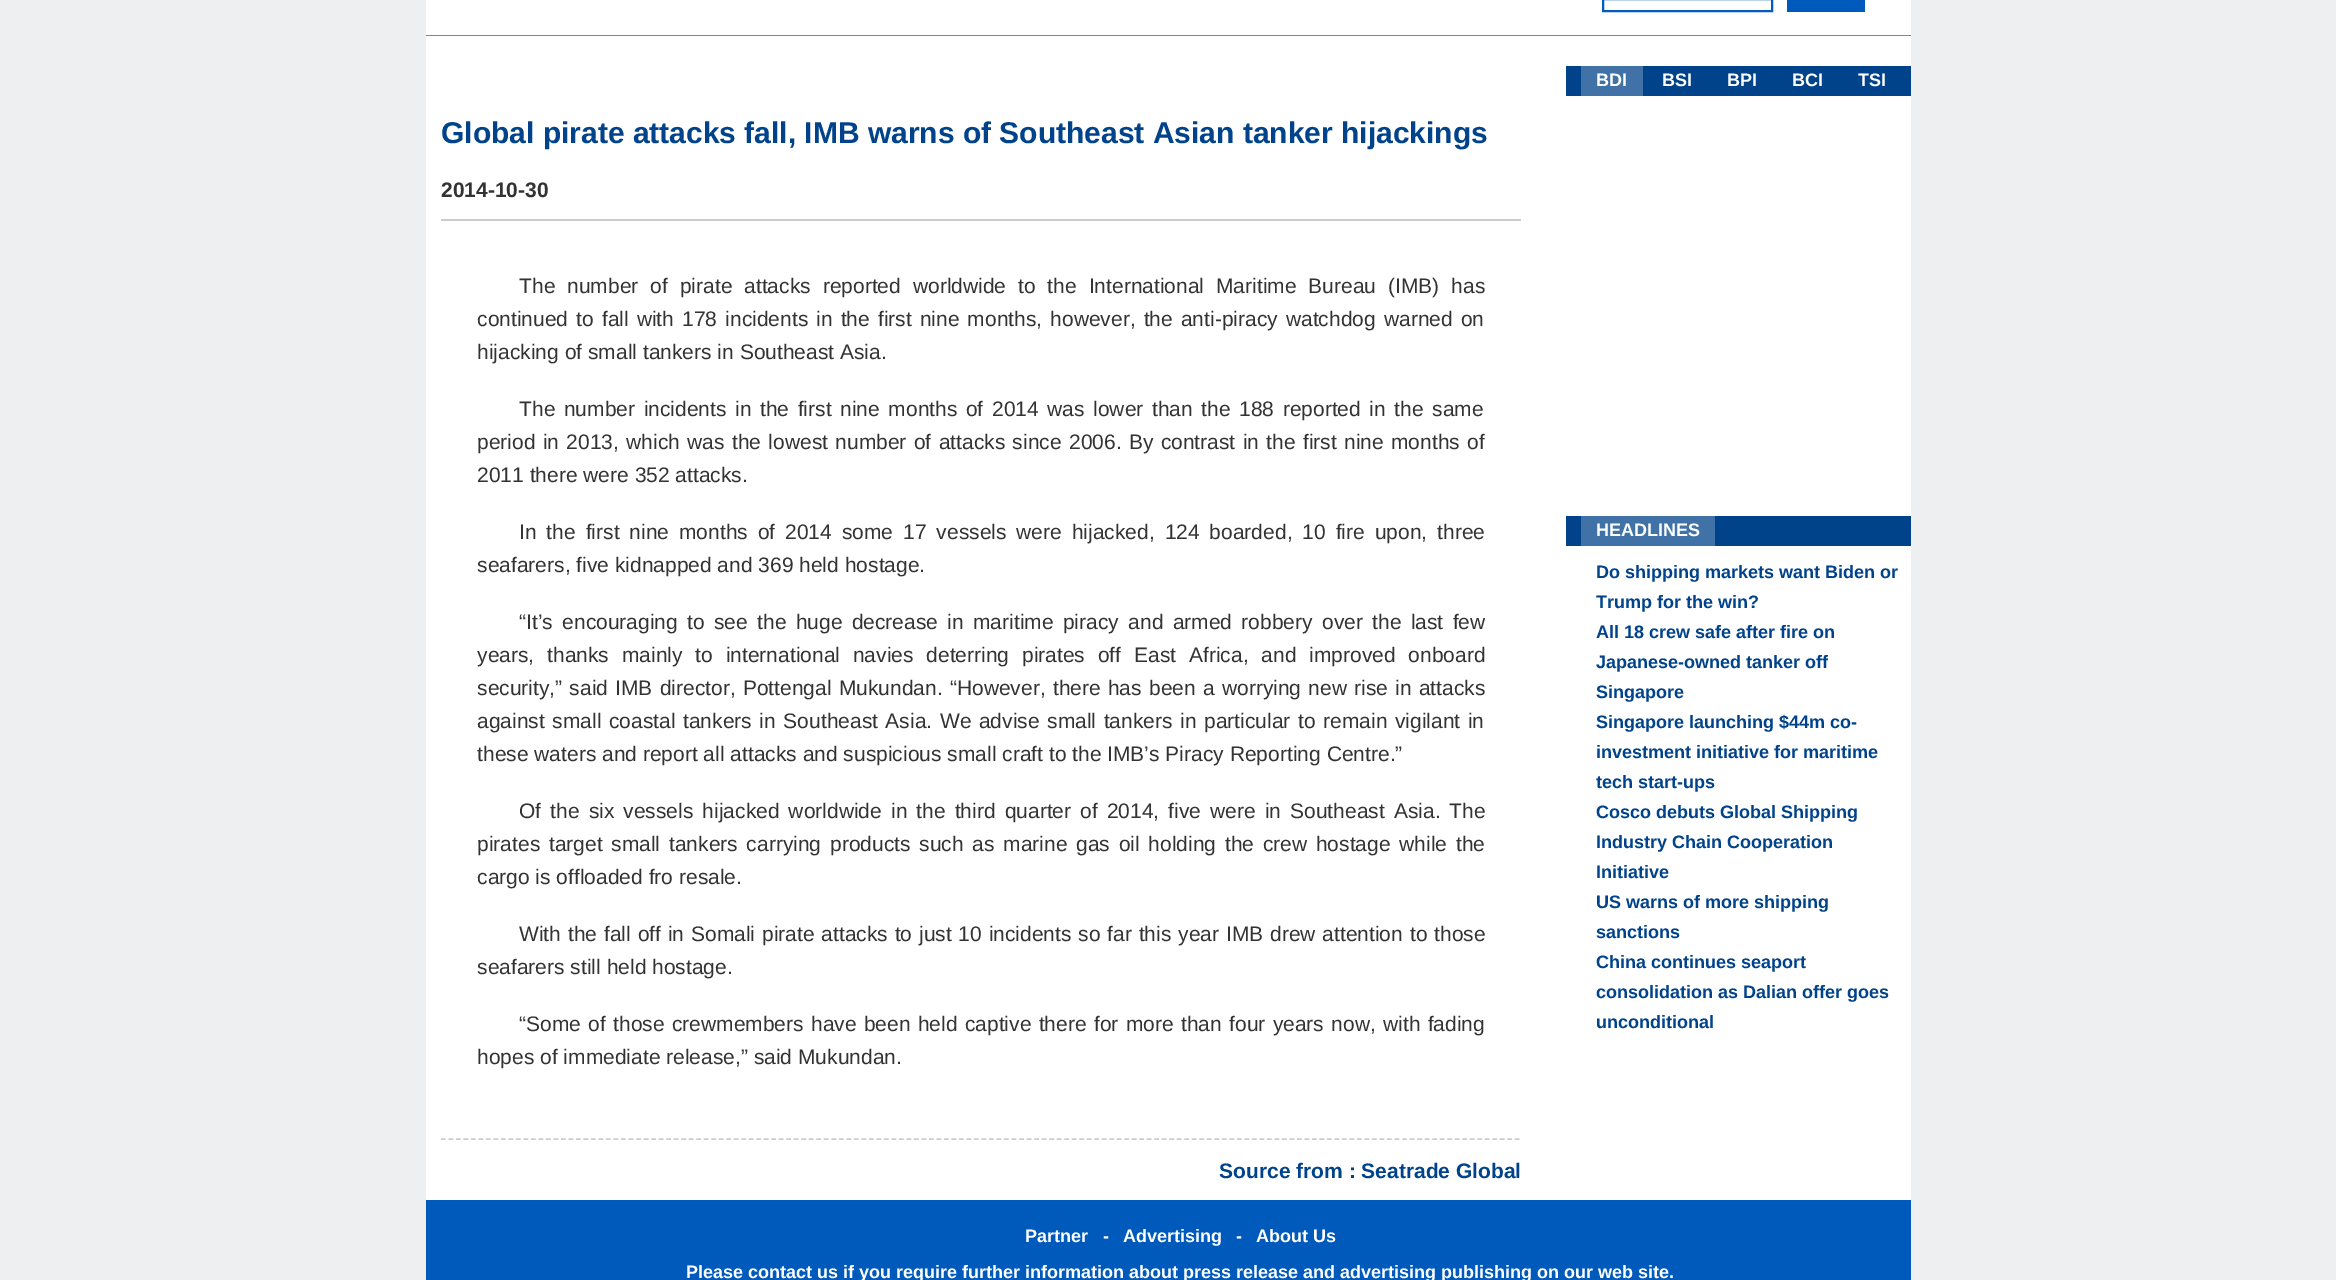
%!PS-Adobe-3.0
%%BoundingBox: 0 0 2336 1280
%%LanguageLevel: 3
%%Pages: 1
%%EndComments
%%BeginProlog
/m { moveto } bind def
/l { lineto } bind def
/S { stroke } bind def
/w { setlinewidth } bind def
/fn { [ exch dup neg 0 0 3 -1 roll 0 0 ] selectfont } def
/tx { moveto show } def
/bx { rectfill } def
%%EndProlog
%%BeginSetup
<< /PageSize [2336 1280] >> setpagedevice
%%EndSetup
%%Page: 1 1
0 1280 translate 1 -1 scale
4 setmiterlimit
0.933 0.937 0.941 setrgbcolor
0 0 2336 1280 bx
1 setgray
426 0 1485 35 bx
0.18 0.616 0.894 setrgbcolor
426 35 1485 1 bx
0.012 0.361 0.737 setrgbcolor
2 w
1603 -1 169 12 rectstroke
0 0.353 0.733 setrgbcolor
1787 0 78 12 bx
1 setgray
426 36 1485 1164 bx
/LiberationSans-Bold 30 fn
0 0.263 0.545 setrgbcolor
(Global pirate attacks fall, IMB warns of Southeast Asian tanker hijackings) 441 143 tx
/LiberationSans-Bold 21 fn
0.2 setgray
(2014-10-30) 441 197 tx
0.8 setgray
441 219 1080 2 bx
1.5 w
[4.5 3.01] 0 setdash
441 1139 m 1521 1139 l S
/LiberationSans-Regular 21 fn
0.2 setgray
519 293 m 6.1 0 32 (The number of pirate attacks reported worldwide to the International Maritime Bureau \(IMB\) has) widthshow
477 326 m 2.25 0 32 (continued to fall with 178 incidents in the first nine months, however, the anti-piracy watchdog warned on) widthshow
(hijacking of small tankers in Southeast Asia.) 477 359 tx
519 416 m 2.75 0 32 (The number incidents in the first nine months of 2014 was lower than the 188 reported in the same) widthshow
477 449 m 1.5 0 32 (period in 2013, which was the lowest number of attacks since 2006. By contrast in the first nine months of) widthshow
(2011 there were 352 attacks.) 477 482 tx
519 539 m 4.1 0 32 (In the first nine months of 2014 some 17 vessels were hijacked, 124 boarded, 10 fire upon, three) widthshow
(seafarers, five kidnapped and 369 held hostage.) 477 572 tx
519 629 m 3.5 0 32 (“It’s encouraging to see the huge decrease in maritime piracy and armed robbery over the last few) widthshow
477 662 m 7 0 32 (years, thanks mainly to international navies deterring pirates off East Africa, and improved onboard) widthshow
477 695 m 1.4 0 32 (security,” said IMB director, Pottengal Mukundan. “However, there has been a worrying new rise in attacks) widthshow
477 728 m 1.75 0 32 (against small coastal tankers in Southeast Asia. We advise small tankers in particular to remain vigilant in) widthshow
(these waters and report all attacks and suspicious small craft to the IMB’s Piracy Reporting Centre.”) 477 761 tx
519 818 m 3.25 0 32 (Of the six vessels hijacked worldwide in the third quarter of 2014, five were in Southeast Asia. The) widthshow
477 851 m 2.9 0 32 (pirates target small tankers carrying products such as marine gas oil holding the crew hostage while the) widthshow
(cargo is offloaded fro resale.) 477 884 tx
519 941 m 1 0 32 (With the fall off in Somali pirate attacks to just 10 incidents so far this year IMB drew attention to those) widthshow
(seafarers still held hostage.) 477 974 tx
519 1031 m 1.5 0 32 (“Some of those crewmembers have been held captive there for more than four years now, with fading) widthshow
(hopes of immediate release,” said Mukundan.) 477 1064 tx
/LiberationSans-Bold 21 fn
0 0.263 0.545 setrgbcolor
(Source from : Seatrade Global) 1219 1178 tx
1566 66 345 30 bx
0.251 0.447 0.659 setrgbcolor
1581 66 62 30 bx
/LiberationSans-Bold 18 fn
1 setgray
(BDI) 1596 86 tx
(BSI) 1662 86 tx
(BPI) 1727 86 tx
(BCI) 1792 86 tx
(TSI) 1858 86 tx
0 0.263 0.545 setrgbcolor
1566 516 345 30 bx
0.251 0.447 0.659 setrgbcolor
1581 516 134 30 bx
1 setgray
(HEADLINES) 1596 536 tx
0 0.263 0.545 setrgbcolor
(Do shipping markets want Biden or) 1596 578 tx
(Trump for the win?) 1596 608 tx
(All 18 crew safe after fire on) 1596 638 tx
(Japanese-owned tanker off) 1596 668 tx
(Singapore) 1596 698 tx
(Singapore launching $44m co-) 1596 728 tx
(investment initiative for maritime) 1596 758 tx
(tech start-ups) 1596 788 tx
(Cosco debuts Global Shipping) 1596 818 tx
(Industry Chain Cooperation) 1596 848 tx
(Initiative) 1596 878 tx
(US warns of more shipping) 1596 908 tx
(sanctions) 1596 938 tx
(China continues seaport) 1596 968 tx
(consolidation as Dalian offer goes) 1596 998 tx
(unconditional) 1596 1028 tx
0 0.353 0.733 setrgbcolor
426 1200 1485 80 bx
1 setgray
(Partner) 1025 1242 tx
(-) 1103 1242 tx
(Advertising) 1123 1242 tx
(-) 1236 1242 tx
(About Us) 1256 1242 tx
(Please contact us if you require further information about press release and advertising publishing on our web site.) 686 1278 tx
showpage
%%EOF
